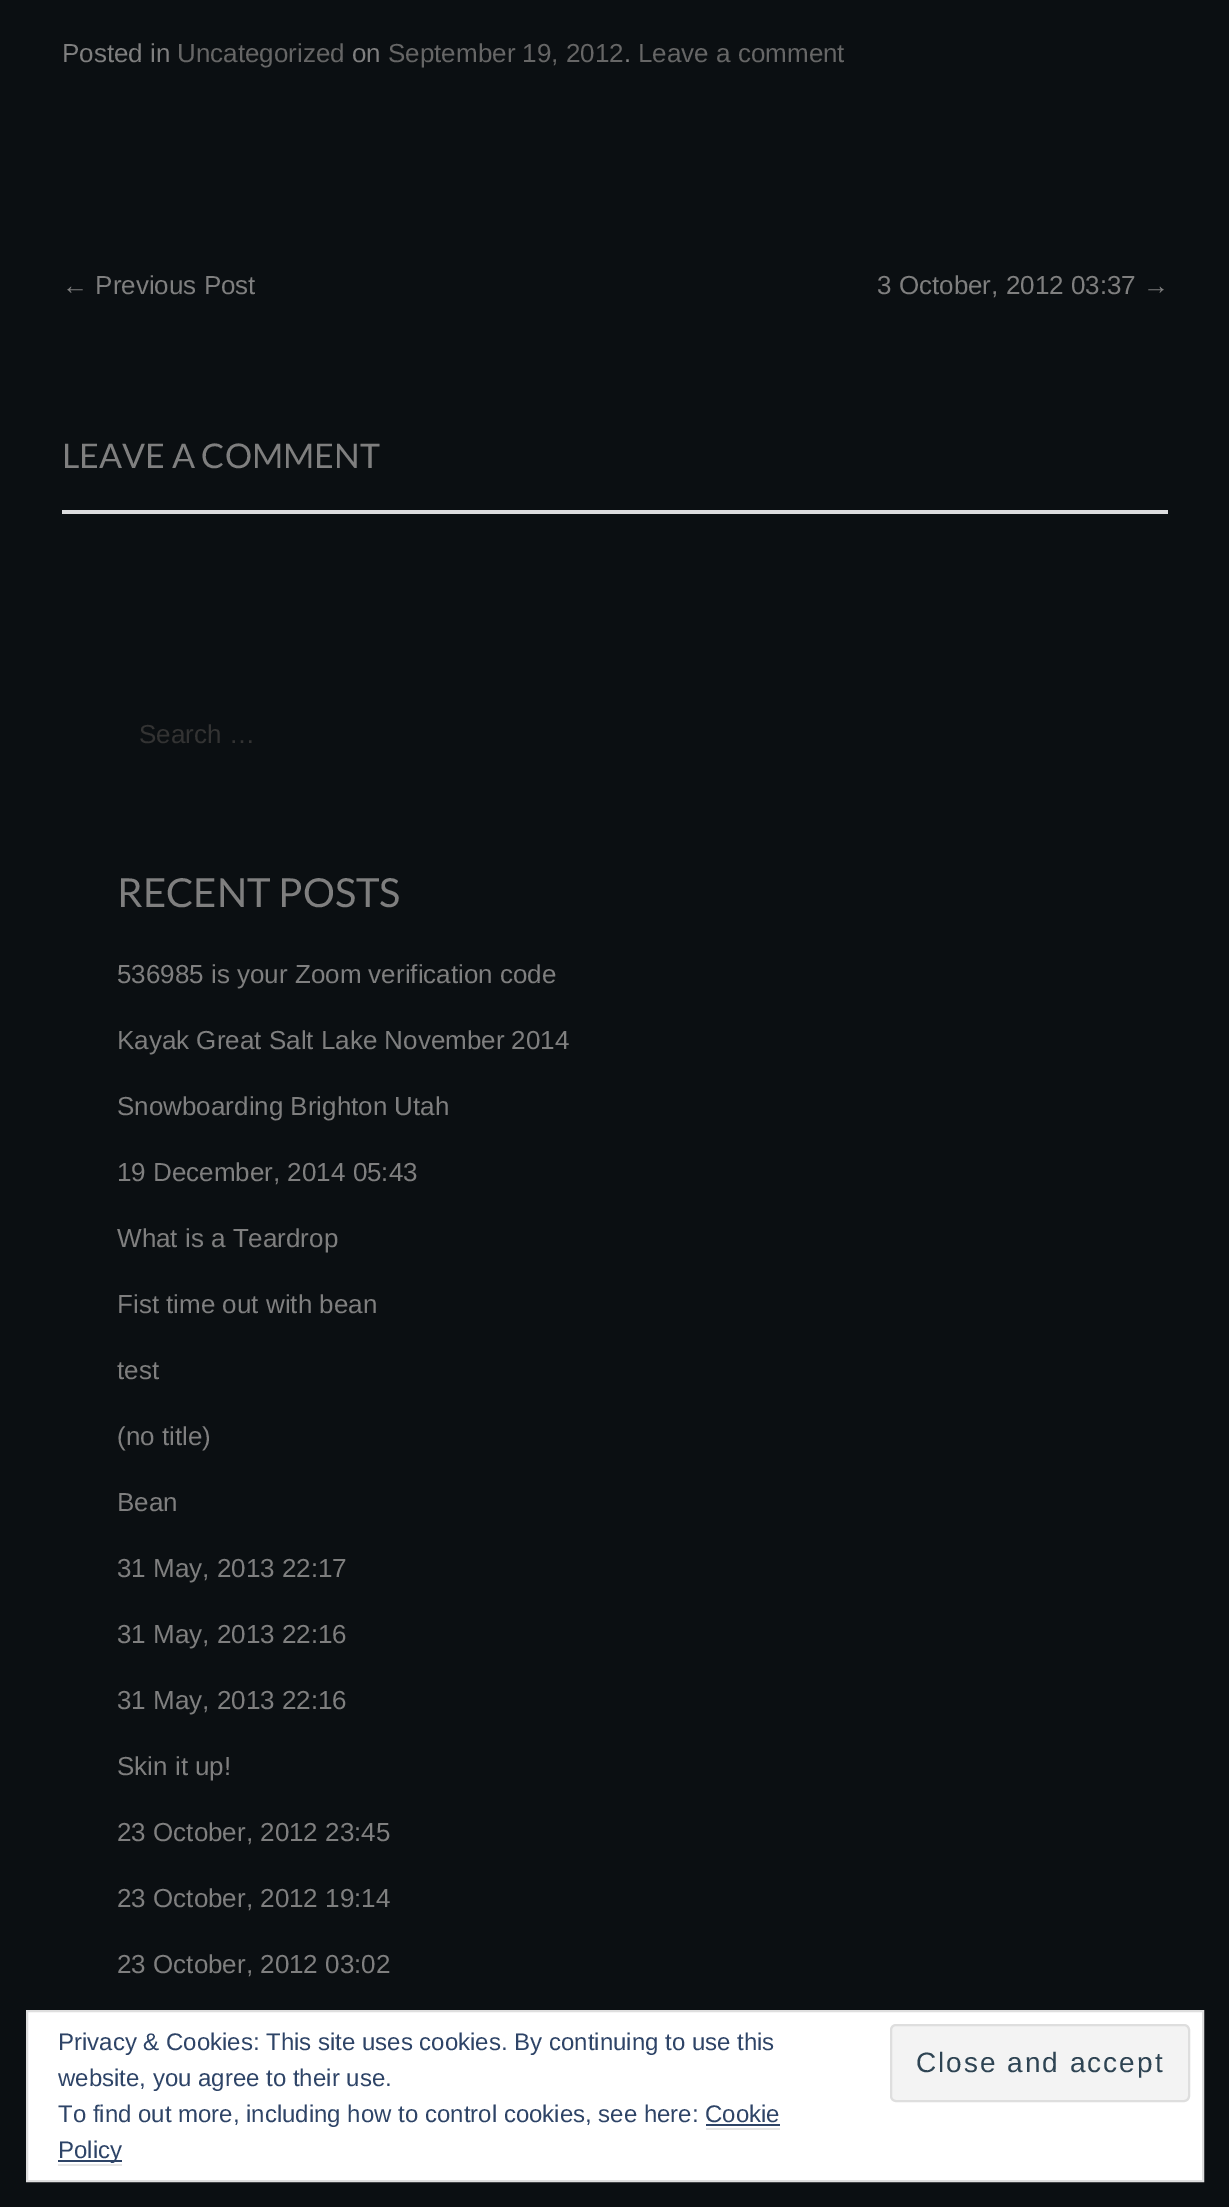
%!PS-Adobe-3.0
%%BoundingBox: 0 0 1229 2207
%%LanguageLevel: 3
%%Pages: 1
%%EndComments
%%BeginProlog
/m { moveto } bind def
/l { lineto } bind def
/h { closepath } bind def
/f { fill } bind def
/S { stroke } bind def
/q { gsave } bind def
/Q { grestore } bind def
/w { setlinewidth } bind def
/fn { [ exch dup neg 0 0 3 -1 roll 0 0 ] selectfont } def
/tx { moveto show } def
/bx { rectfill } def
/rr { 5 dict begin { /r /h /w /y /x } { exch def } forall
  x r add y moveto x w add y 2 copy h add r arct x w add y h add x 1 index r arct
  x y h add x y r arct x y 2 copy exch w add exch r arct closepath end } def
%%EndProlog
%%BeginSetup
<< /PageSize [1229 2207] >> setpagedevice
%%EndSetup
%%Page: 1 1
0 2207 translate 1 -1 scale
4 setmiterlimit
0.043 0.059 0.071 setrgbcolor
0 0 1229 2207 bx
/LiberationSans-Regular 26 fn
0.498 setgray
(Posted in) 62 62 tx
0.4 setgray
(Uncategorized) 177 62 tx
0.498 setgray
(on) 352 62 tx
0.4 setgray
(September 19, 2012) 388 62 tx
0.498 setgray
(.) 624 62 tx
0.4 setgray
(Leave a comment) 638 62 tx
0.498 setgray
(← Previous Post) 62 294 tx
(3 October, 2012 03:37 →) 877 294 tx
/Lato-Regular 34 fn
(LEAVE A COMMENT) 62 468 tx
0.863 0.863 0.871 setrgbcolor
62 510 1106 4 bx
/LiberationSans-Regular 26 fn
0.2 setgray
(Search …) 139 743 tx
/Lato-Regular 40 fn
0.498 setgray
(RECENT POSTS) 117 907 tx
/LiberationSans-Regular 26 fn
(536985 is your Zoom verification code) 117 983 tx
(Kayak Great Salt Lake November 2014) 117 1049 tx
(Snowboarding Brighton Utah) 117 1115 tx
(19 December, 2014 05:43) 117 1181 tx
(What is a Teardrop) 117 1247 tx
(Fist time out with bean) 117 1313 tx
(test) 117 1379 tx
(\(no title\)) 117 1445 tx
(Bean) 117 1511 tx
(31 May, 2013 22:17) 117 1577 tx
(31 May, 2013 22:16) 117 1643 tx
(31 May, 2013 22:16) 117 1709 tx
(Skin it up!) 117 1775 tx
(23 October, 2012 23:45) 117 1841 tx
(23 October, 2012 19:14) 117 1907 tx
(23 October, 2012 03:02) 117 1973 tx
1 setgray
27 2011 m 1203 2011 l 1203 2181 l 27 2181 l h q f Q
0.871 setgray
2 w
S
/LiberationSans-Regular 24 fn
0.18 0.267 0.404 setrgbcolor
(Privacy & Cookies: This site uses cookies. By continuing to use this) 58 2050 tx
(website, you agree to their use.) 58 2086 tx
0.953 setgray
891 2025 298 76 5 rr q f Q
0.871 setgray
S
/LiberationSans-Regular 28 fn
0.18 0.267 0.325 setrgbcolor
916 2072 m 2 0 (Close and accept) ashow
/LiberationSans-Regular 24 fn
0.18 0.267 0.404 setrgbcolor
(To find out more, including how to control cookies, see here: Cookie) 58 2122 tx
58 2160 64 2 bx
(Policy) 58 2158 tx
0.902 setgray
706 2128 74 2 bx
58 2164 64 2 bx
0.18 0.267 0.404 setrgbcolor
706 2124 74 2 bx
showpage
%%EOF
